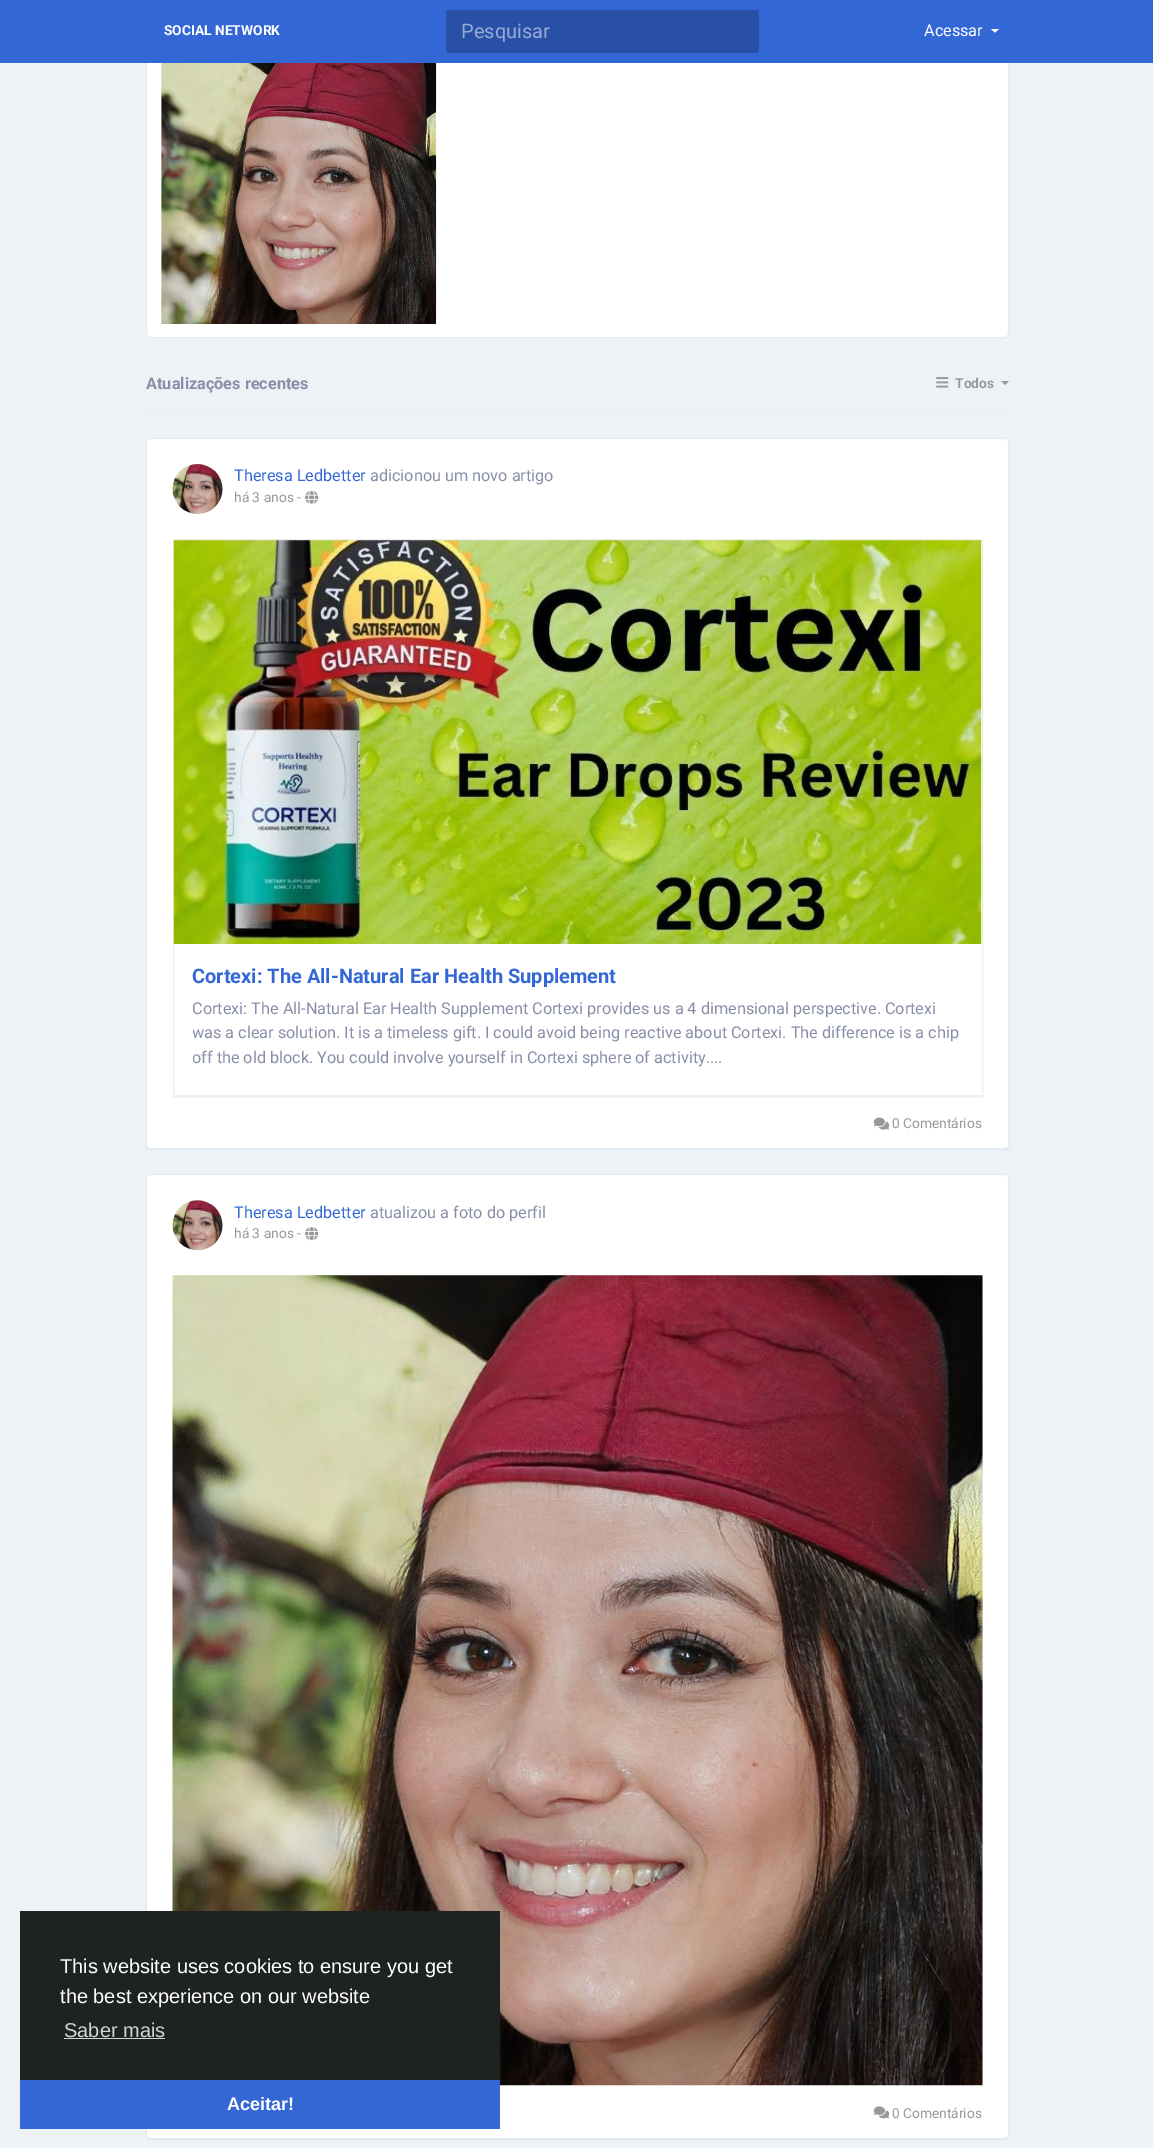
%!PS-Adobe-3.0
%%BoundingBox: 0 0 1153 2148
%%LanguageLevel: 3
%%Pages: 1
%%EndComments
%%BeginProlog
/m { moveto } bind def
/l { lineto } bind def
/h { closepath } bind def
/f { fill } bind def
/S { stroke } bind def
/q { gsave } bind def
/Q { grestore } bind def
/fn { [ exch dup neg 0 0 3 -1 roll 0 0 ] selectfont } def
/tx { moveto show } def
/bx { rectfill } def
/al { dup .setfillconstantalpha .setstrokeconstantalpha } def
/ci { newpath 0 360 arc closepath } def
/rr { 5 dict begin { /r /h /w /y /x } { exch def } forall
  x r add y moveto x w add y 2 copy h add r arct x w add y h add x 1 index r arct
  x y h add x y r arct x y 2 copy exch w add exch r arct closepath end } def
/sh { 12 dict begin { /a /b /q /h /w /y /x } { exch def } forall gsave /was 0 def
  9 -2 -9 { dup b mul 4 div /e exch def 1 sub .425 mul 2.718 exch exp 1 add a .99 .min exch div /now exch def
    1 1 now sub 1 was sub div sub al /was now def
    w h .min e 2 mul add 0 gt { x e sub y e sub w e 2 mul add h e 2 mul add
      q e add b .6 mul add w h .min 2 div e add .min 0 .max rr fill } if } for grestore end } def
/im { 5 dict begin { /h /w /y /x /name } { exch def } forall
  gsave x y translate w h scale
  w h 8 [w 0 0 h 0 0] name (r) file false 3 colorimage grestore end } def
%%EndProlog
%%BeginSetup
<< /PageSize [1153 2148] /PageUsesTransparency true >> setpagedevice
%%EndSetup
%%Page: 1 1
0 .pushpdf14devicefilter
0 2148 translate 1 -1 scale
4 setmiterlimit
0.929 0.949 0.965 setrgbcolor
0 0 1153 2148 bx
1 setgray
146.5 -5.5 862 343 4.5 rr q f Q
0.902 0.925 0.961 setrgbcolor
S
0.933 setgray
161 45 275 279 1 rr f
0.2 0.404 0.839 setrgbcolor
0 0 1153 63 bx
/Roboto-Bold 13.75 fn
1 setgray
(SOCIAL NETWORK) 164 35 tx
0.157 0.314 0.655 setrgbcolor
446 10 313 43 2.5 rr f
/Roboto-Regular 20 fn
0.588 0.667 0.831 setrgbcolor
(Pesquisar) 461 38 tx
/Roboto-Regular 16.25 fn
1 setgray
(Acessar) 924 36 tx
991 29 m 999 29 l 995 32.5 l h f
(image0.raw) 161 63 276 261 im
0.902 0.925 0.961 setrgbcolor
146 411 863 1 bx
/Roboto-Bold 16.25 fn
0.533 0.553 0.659 setrgbcolor
(Atualizações recentes) 146 389 tx
(image1.raw) 936 377 13 11 im
/Roboto-Bold 13.75 fn
0.6 setgray
(Todos) 955 388 tx
1001 381 m 1009 381 l 1005 385 l h f
0 setgray
146 439 863 711 4 0.5 0.05 sh
1 setgray
146.5 438.5 862 710 3.5 rr q f Q
0.902 0.925 0.961 setrgbcolor
S
0.933 setgray
198 489 25 ci f
(image2.raw) 172 464 51 50 im
/Roboto-Regular 16.25 fn
0.2 0.404 0.839 setrgbcolor
(Theresa Ledbetter) 234 481 tx
0.533 0.553 0.659 setrgbcolor
(adicionou um novo artigo) 370 481 tx
/Roboto-Regular 13.75 fn
0.6 setgray
(há 3 anos -) 234 502 tx
(image3.raw) 305 490 14 14 im
q
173 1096 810 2 rectclip
0 setgray
173 540 810 558 0 0.5 0.05 sh
Q
0.933 setgray
173.5 539.5 809 556 rectstroke
(image4.raw) 173 540 809 404 im
/Roboto-Bold 20 fn
0.2 0.404 0.839 setrgbcolor
(Cortexi: The All-Natural Ear Health Supplement) 192 983 tx
q
193 996 770 74 rectclip
/Roboto-Regular 16.25 fn
0.533 0.553 0.659 setrgbcolor
(Cortexi: The All-Natural Ear Health Supplement Cortexi provides us a 4 dimensional perspective. Cortexi) 192 1014 tx
(was a clear solution. It is a timeless gift. I could avoid being reactive about Cortexi. The difference is a chip) 192 1038 tx
(off the old block. You could involve yourself in Cortexi sphere of activity....) 192 1063 tx
Q
(image5.raw) 873 1117 17 13 im
/Roboto-Regular 13.75 fn
0.6 setgray
(0 Comentários) 892 1128 tx
0 setgray
146 1175 863 965 4 0.5 0.05 sh
1 setgray
146.5 1174.5 862 964 3.5 rr q f Q
0.902 0.925 0.961 setrgbcolor
S
0.933 setgray
198 1225 25 ci f
(image6.raw) 172 1200 51 51 im
/Roboto-Regular 16.25 fn
0.2 0.404 0.839 setrgbcolor
(Theresa Ledbetter) 234 1218 tx
0.533 0.553 0.659 setrgbcolor
(atualizou a foto do perfil) 370 1218 tx
/Roboto-Regular 13.75 fn
0.6 setgray
(há 3 anos -) 234 1238 tx
(image7.raw) 305 1227 14 14 im
0.961 setgray
173 1275 810 810 bx
(image8.raw) 172 1275 811 811 im
(image9.raw) 873 2106 17 13 im
0.6 setgray
(0 Comentários) 892 2118 tx
0.118 0.137 0.129 setrgbcolor
20 1911 480 169 bx
/LiberationSans-Regular 20 fn
1 setgray
(This website uses cookies to ensure you get) 60 1973 tx
(the best experience on our website) 60 2003 tx
0.824 0.827 0.827 setrgbcolor
(Saber mais) 64 2037 tx
64 2038 101 1 bx
0.2 0.404 0.839 setrgbcolor
20 2080 480 49 bx
/LiberationSans-Bold 18 fn
1 setgray
(Aceitar!) 227 2110 tx
.poppdf14devicefilter showpage
%%EOF
